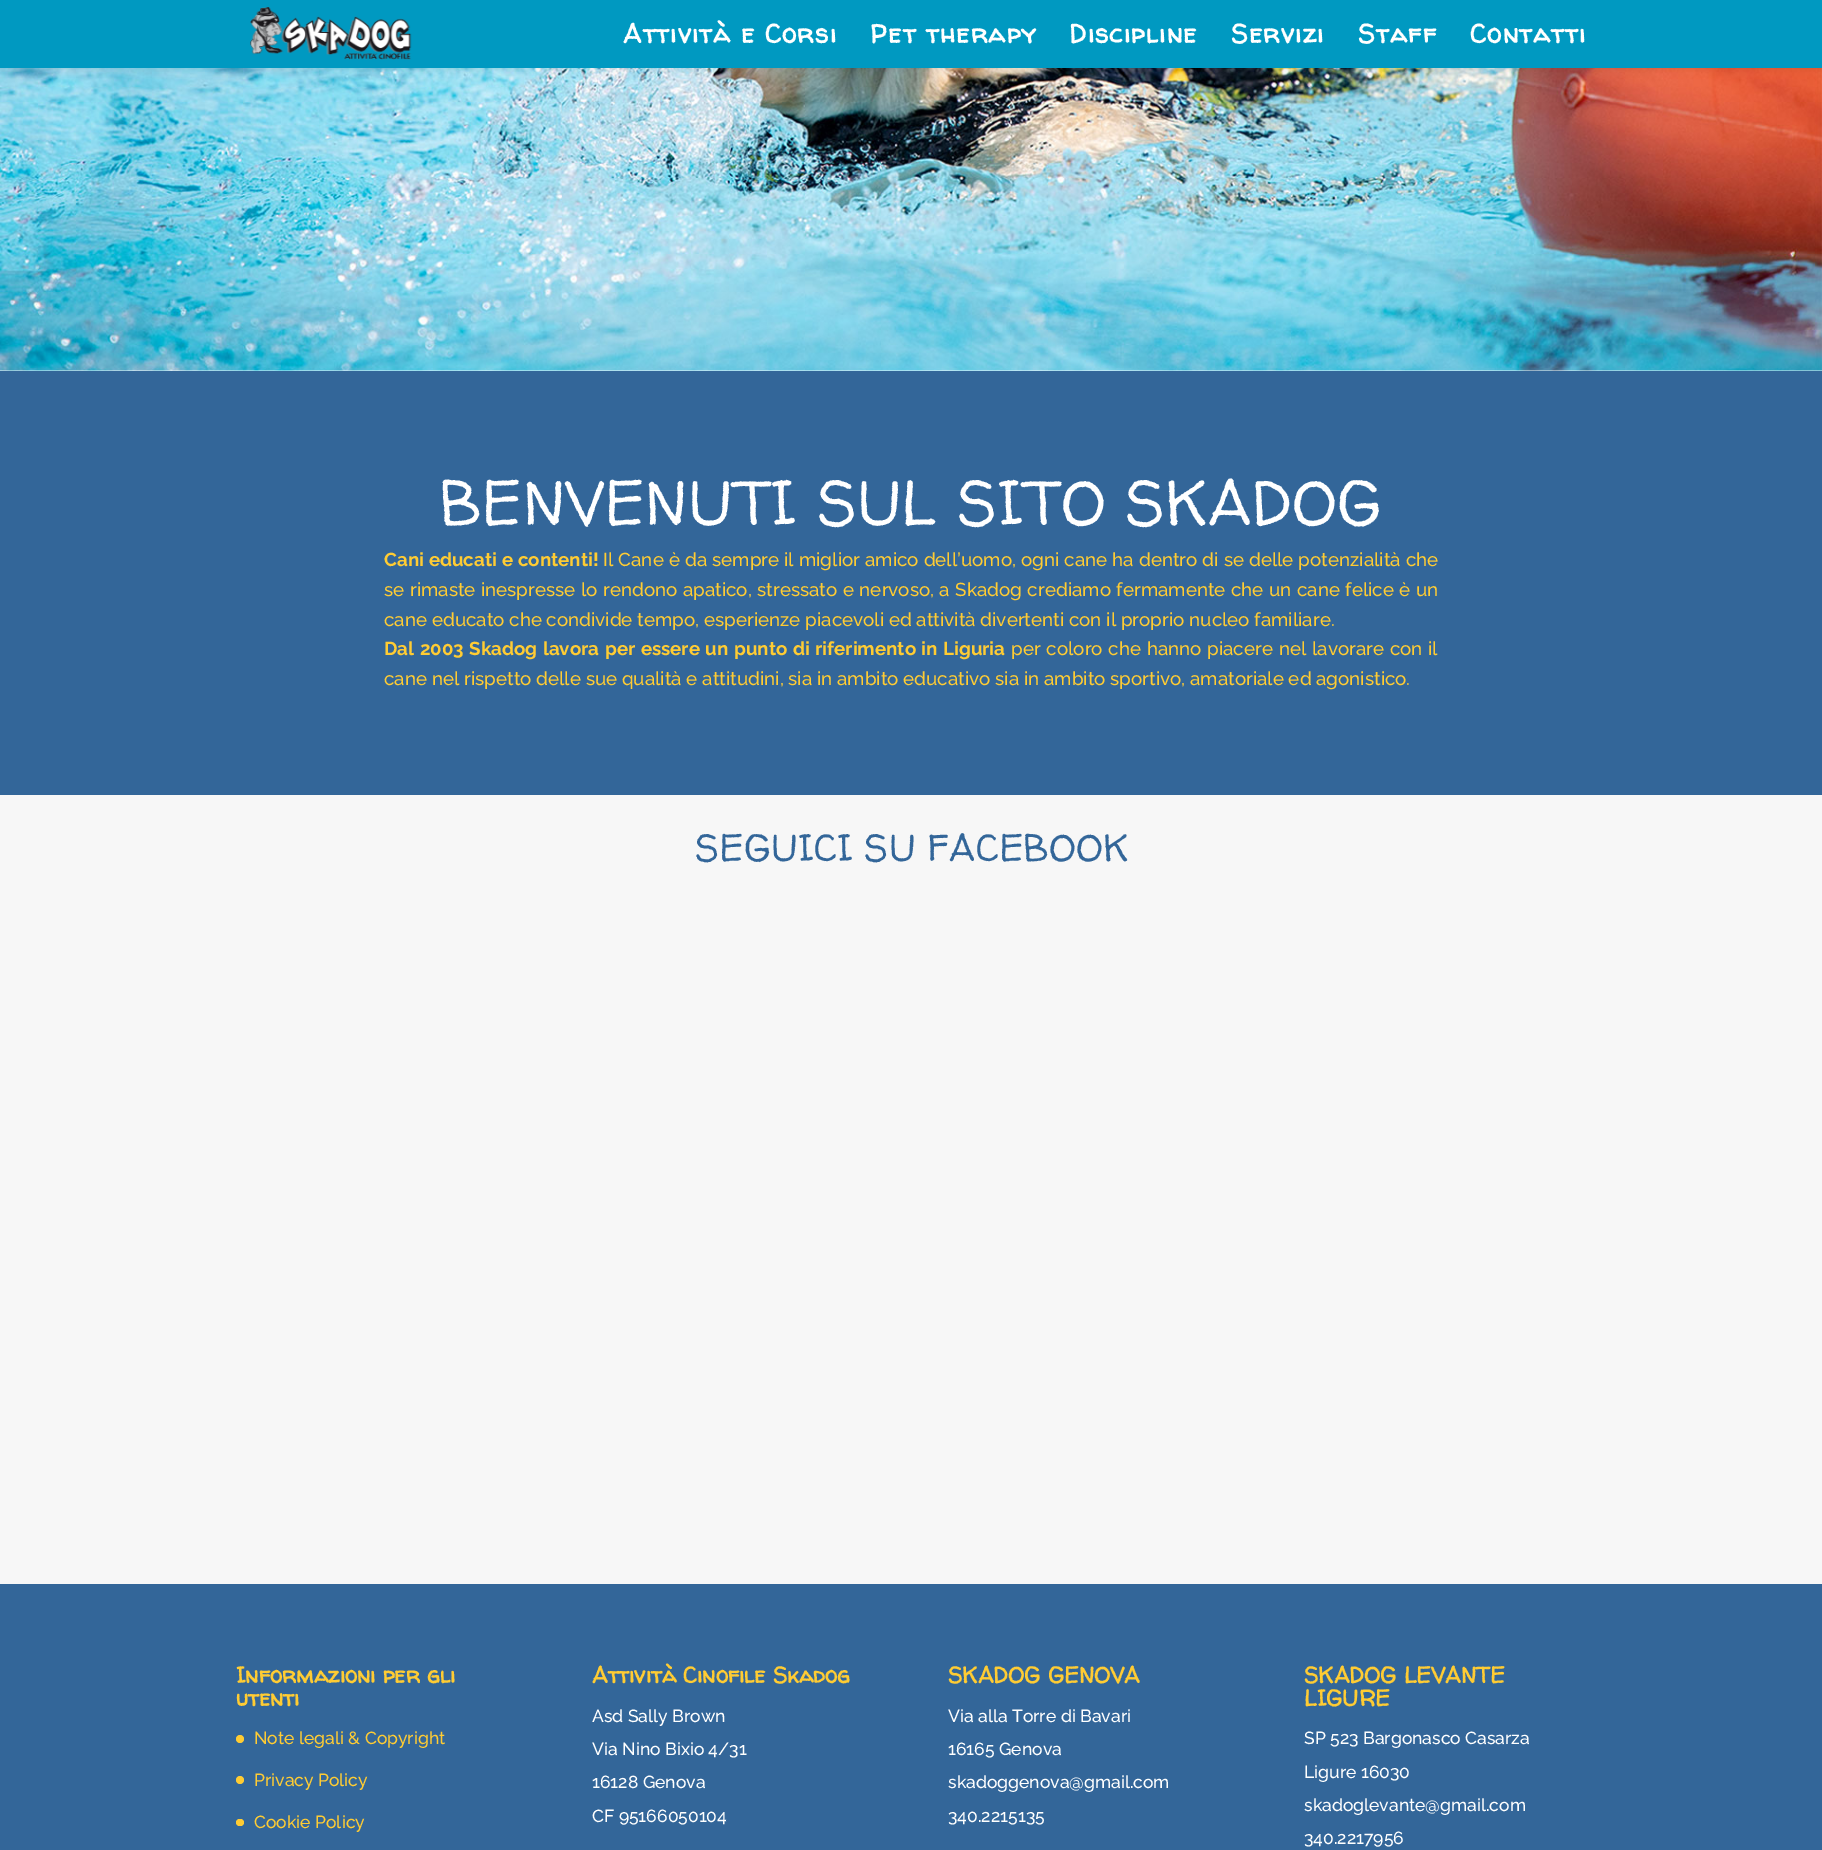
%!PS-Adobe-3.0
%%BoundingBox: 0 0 1822 1850
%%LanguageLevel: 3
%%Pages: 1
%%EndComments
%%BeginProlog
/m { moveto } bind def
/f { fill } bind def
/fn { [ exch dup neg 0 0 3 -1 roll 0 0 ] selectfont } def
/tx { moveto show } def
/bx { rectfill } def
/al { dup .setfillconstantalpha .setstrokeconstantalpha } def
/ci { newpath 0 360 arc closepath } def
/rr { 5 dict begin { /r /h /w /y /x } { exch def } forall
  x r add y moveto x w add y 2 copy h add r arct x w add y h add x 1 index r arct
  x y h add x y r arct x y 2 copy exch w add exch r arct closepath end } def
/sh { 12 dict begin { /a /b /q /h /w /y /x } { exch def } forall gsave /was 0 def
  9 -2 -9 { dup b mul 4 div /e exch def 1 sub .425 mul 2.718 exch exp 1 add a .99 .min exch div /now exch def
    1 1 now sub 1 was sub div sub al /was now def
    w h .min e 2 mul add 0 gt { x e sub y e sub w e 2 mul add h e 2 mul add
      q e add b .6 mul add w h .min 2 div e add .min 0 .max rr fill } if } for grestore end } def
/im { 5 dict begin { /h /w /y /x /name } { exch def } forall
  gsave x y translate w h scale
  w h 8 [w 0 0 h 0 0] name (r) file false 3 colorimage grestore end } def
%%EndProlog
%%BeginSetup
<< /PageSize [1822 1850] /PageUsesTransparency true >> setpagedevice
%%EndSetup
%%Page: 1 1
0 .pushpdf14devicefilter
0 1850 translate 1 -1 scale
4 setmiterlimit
0.2 0.4 0.6 setrgbcolor
0 0 1822 1850 bx
1 setgray
0 370 1822 1 bx
(image1.raw) 0 68 1822 303 im
0 setgray
0 0 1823 68 0 4.5 0.1 sh
0 0.6 0.757 setrgbcolor
0 0 1822 68 bx
(image0.raw) 250 7 162 53 im
/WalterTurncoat-Bold 26.25 fn
1 setgray
623 43 m 1.25 0 (Attività e Corsi) ashow
870 43 m 1.25 0 (Pet therapy) ashow
1069 43 m 1.25 0 (Discipline) ashow
1231 43 m 1.25 0 (Servizi) ashow
1358 43 m 1.25 0 (Staff) ashow
1470 43 m 1.25 0 (Contatti) ashow
/WalterTurncoat-Regular 62.5 fn
(BENVENUTI SUL SITO SKADOG) 439 525 tx
/Raleway-Bold 18.75 fn
1 0.8 0.2 setrgbcolor
384 566 m 0.3 0 32 (Cani educati e contenti!) widthshow
/Raleway-Medium 18.75 fn
603 566 m 0.3 0 32 (Il Cane è da sempre il miglior amico dell’uomo, ogni cane ha dentro di se delle potenzialità che) widthshow
384 596 m 0.75 0 32 (se rimaste inespresse lo rendono apatico, stressato e nervoso, a Skadog crediamo fermamente che un cane felice è un) widthshow
(cane educato che condivide tempo, esperienze piacevoli ed attività divertenti con il proprio nucleo familiare.) 384 626 tx
/Raleway-Bold 18.75 fn
384 655 m 1 0 32 (Dal 2003 Skadog lavora per essere un punto di riferimento in Liguria) widthshow
/Raleway-Medium 18.75 fn
1011 655 m 1 0 32 (per coloro che hanno piacere nel lavorare con il) widthshow
(cane nel rispetto delle sue qualità e attitudini, sia in ambito educativo sia in ambito sportivo, amatoriale ed agonistico.) 384 685 tx
0.969 setgray
0 795 1822 789 bx
/WalterTurncoat-Regular 37.5 fn
0.2 0.4 0.6 setrgbcolor
(SEGUICI SU FACEBOOK) 695 861 tx
/WalterTurncoat-Bold 22.5 fn
1 0.8 0.2 setrgbcolor
(Informazioni per gli) 236 1683 tx
(utenti) 236 1706 tx
240 1739 4 ci f
/Raleway-Medium 17.5 fn
(Note legali & Copyright) 254 1744 tx
240 1780 4 ci f
(Privacy Policy) 254 1786 tx
236 1819 8 7 3.5 rr f
(Cookie Policy) 254 1828 tx
/WalterTurncoat-Bold 22.5 fn
(Attività Cinofile Skadog) 592 1683 tx
/Raleway-Medium 17.5 fn
1 setgray
(Asd Sally Brown) 592 1722 tx
(Via Nino Bixio 4/31) 592 1755 tx
(16128 Genova) 592 1788 tx
(CF 95166050104) 592 1822 tx
/WalterTurncoat-Bold 22.5 fn
1 0.8 0.2 setrgbcolor
(SKADOG GENOVA) 948 1683 tx
/Raleway-Medium 17.5 fn
1 setgray
(Via alla Torre di Bavari) 948 1722 tx
(16165 Genova) 948 1755 tx
(skadoggenova@gmail.com) 948 1788 tx
(340.2215135) 948 1822 tx
/WalterTurncoat-Bold 22.5 fn
1 0.8 0.2 setrgbcolor
(SKADOG LEVANTE) 1304 1683 tx
(LIGURE) 1304 1706 tx
/Raleway-Medium 17.5 fn
1 setgray
(SP 523 Bargonasco Casarza) 1304 1744 tx
(Ligure 16030) 1304 1778 tx
(skadoglevante@gmail.com) 1304 1811 tx
(340.2217956) 1304 1844 tx
.poppdf14devicefilter showpage
%%EOF
